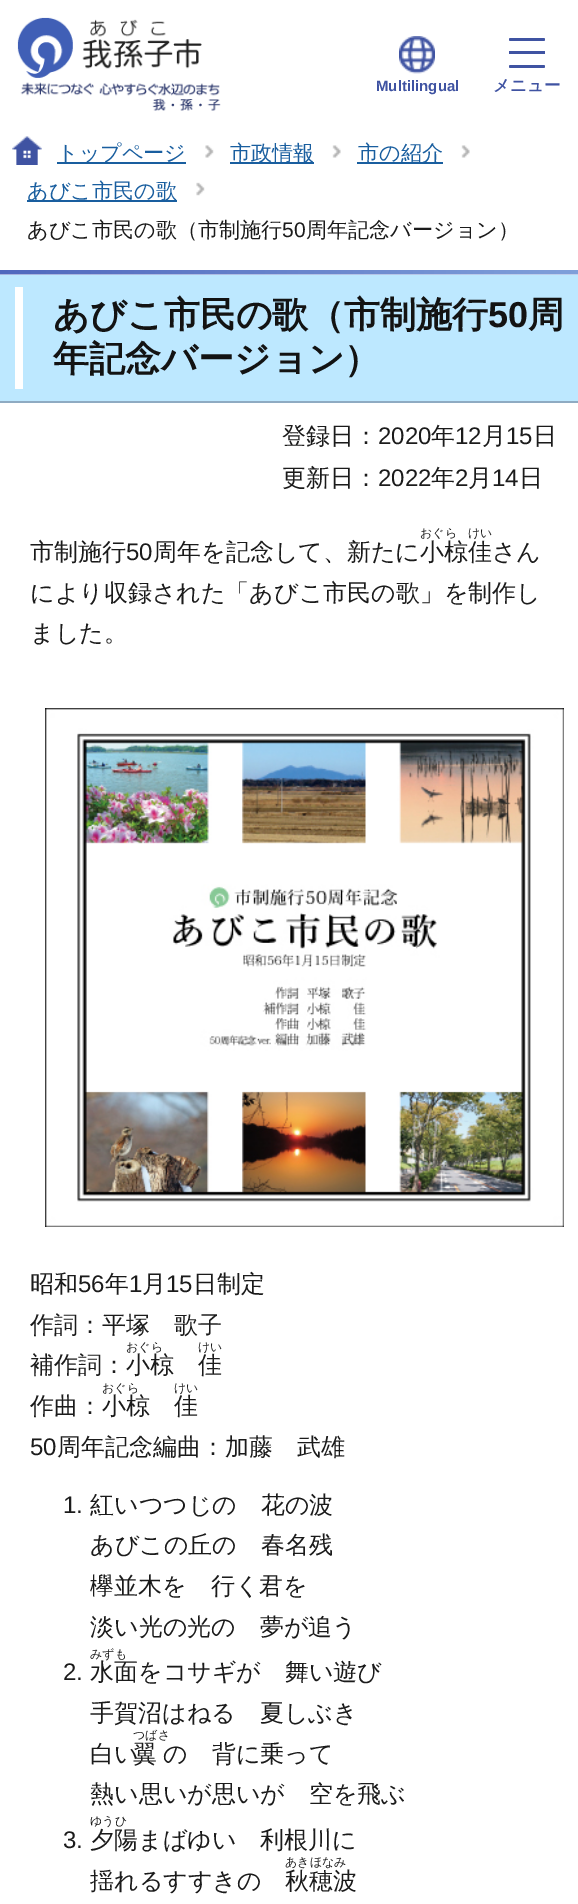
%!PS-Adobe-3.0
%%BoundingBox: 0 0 578 1904
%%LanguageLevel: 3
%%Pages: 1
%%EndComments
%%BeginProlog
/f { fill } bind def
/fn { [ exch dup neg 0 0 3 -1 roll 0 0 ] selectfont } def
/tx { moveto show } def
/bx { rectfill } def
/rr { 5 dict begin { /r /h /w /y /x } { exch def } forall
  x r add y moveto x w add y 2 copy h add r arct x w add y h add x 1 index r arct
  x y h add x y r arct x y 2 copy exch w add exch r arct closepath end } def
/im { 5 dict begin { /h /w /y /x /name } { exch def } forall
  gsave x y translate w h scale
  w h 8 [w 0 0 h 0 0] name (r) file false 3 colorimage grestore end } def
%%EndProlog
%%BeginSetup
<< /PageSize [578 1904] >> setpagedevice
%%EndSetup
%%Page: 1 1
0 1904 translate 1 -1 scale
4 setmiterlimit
1 setgray
0 0 578 1904 bx
(image0.raw) 17 17 204 94 im
(image1.raw) 399 36 36 38 im
/LiberationSans-Bold 15 fn
0.247 0.325 0.635 setrgbcolor
(Multilingual) 376 91 tx
509 38 36 3 1.5 rr f
509 51 36 3 bx
509 65 36 3 1.5 rr f
/WenQuanYiZenHei-Bold 16.5 fn
(メニュー) 493 91 tx
(image2.raw) 12 136 30 29 im
(image3.raw) 205 145 9 13 im
0.098 0.369 0.624 setrgbcolor
57 162 129 2 bx
/WenQuanYiZenHei-Medium 21.1 fn
(トップページ) 57 160 tx
(image4.raw) 332 145 9 13 im
230 162 84 2 bx
(市政情報) 230 160 tx
(image4.raw) 461 145 9 13 im
357 162 86 2 bx
(市の紹介) 358 160 tx
(image5.raw) 196 182 9 14 im
27 200 150 2 bx
(あびこ市民の歌) 27 198 tx
0.106 setgray
(あびこ市民の歌（市制施行) 27 237 tx
/LiberationSans-Regular 21.1 fn
(50) 282 237 tx
/WenQuanYiZenHei-Medium 21.1 fn
(周年記念バージョン）) 306 237 tx
(image6.raw) 0 270 578 5 im
0.741 0.91 1 setrgbcolor
0 275 578 126 bx
0.561 0.671 0.761 setrgbcolor
0 401 578 2 bx
1 setgray
15 287 8 102 bx
/WenQuanYiZenHei-Bold 36 fn
0.075 setgray
(あびこ市民の歌（市制施行) 53 327 tx
/LiberationSans-Bold 36 fn
(50) 488 327 tx
/WenQuanYiZenHei-Bold 36 fn
(周) 528 327 tx
(年記念バージョン）) 53 371 tx
/WenQuanYiZenHei-Medium 24 fn
0.106 setgray
(登録日：) 282 444 tx
/LiberationSans-Regular 24 fn
(2020) 378 444 tx
/WenQuanYiZenHei-Medium 24 fn
(年) 431 444 tx
/LiberationSans-Regular 24 fn
(12) 455 444 tx
/WenQuanYiZenHei-Medium 24 fn
(月) 482 444 tx
/LiberationSans-Regular 24 fn
(15) 506 444 tx
/WenQuanYiZenHei-Medium 24 fn
(日) 533 444 tx
(更新日：) 282 486 tx
/LiberationSans-Regular 24 fn
(2022) 378 486 tx
/WenQuanYiZenHei-Medium 24 fn
(年) 431 486 tx
/LiberationSans-Regular 24 fn
(2) 455 486 tx
/WenQuanYiZenHei-Medium 24 fn
(月) 468 486 tx
/LiberationSans-Regular 24 fn
(14) 492 486 tx
/WenQuanYiZenHei-Medium 24 fn
(日) 519 486 tx
/WenQuanYiZenHei-Medium 12 fn
(おぐら) 420 537 tx
(けい) 468 537 tx
/WenQuanYiZenHei-Medium 24 fn
(市制施行) 30 560 tx
/LiberationSans-Regular 24 fn
(50) 126 560 tx
/WenQuanYiZenHei-Medium 24 fn
(周年を記念して、新たに小椋佳さん) 153 560 tx
(により収録された「あびこ市民の歌」を制作し) 30 601 tx
(ました。) 30 641 tx
(image7.raw) 45 708 519 519 im
(昭和) 30 1292 tx
/LiberationSans-Regular 24 fn
(56) 78 1292 tx
/WenQuanYiZenHei-Medium 24 fn
(年) 105 1292 tx
/LiberationSans-Regular 24 fn
(1) 129 1292 tx
/WenQuanYiZenHei-Medium 24 fn
(月) 142 1292 tx
/LiberationSans-Regular 24 fn
(15) 166 1292 tx
/WenQuanYiZenHei-Medium 24 fn
(日制定) 193 1292 tx
(作詞：平塚　歌子) 30 1333 tx
/WenQuanYiZenHei-Medium 12 fn
(おぐら) 126 1351 tx
(けい) 198 1351 tx
/WenQuanYiZenHei-Medium 24 fn
(佳) 198 1373 tx
(補作詞：小椋) 30 1373 tx
/WenQuanYiZenHei-Medium 12 fn
(おぐら) 102 1392 tx
(けい) 174 1392 tx
/WenQuanYiZenHei-Medium 24 fn
(佳) 174 1414 tx
(作曲：小椋) 30 1414 tx
/LiberationSans-Regular 24 fn
(50) 30 1455 tx
/WenQuanYiZenHei-Medium 24 fn
(周年記念編曲：加藤　武雄) 57 1455 tx
/LiberationSans-Regular 24 fn
(1.) 63 1513 tx
/WenQuanYiZenHei-Medium 24 fn
(紅いつつじの　花の波) 90 1513 tx
(あびこの丘の　春名残) 90 1553 tx
(欅並木を　行く君を) 90 1594 tx
(淡い光の光の　夢が追う) 90 1635 tx
/LiberationSans-Regular 24 fn
(2.) 63 1680 tx
/WenQuanYiZenHei-Medium 12 fn
(みずも) 90 1658 tx
/WenQuanYiZenHei-Medium 24 fn
(水面をコサギが　舞い遊び) 90 1680 tx
(手賀沼はねる　夏しぶき) 90 1721 tx
(白い) 90 1762 tx
/WenQuanYiZenHei-Medium 12 fn
(つばさ) 133 1739 tx
/WenQuanYiZenHei-Medium 24 fn
(翼) 133 1762 tx
(の　背に乗って) 163 1762 tx
(熱い思いが思いが　空を飛ぶ) 90 1802 tx
/LiberationSans-Regular 24 fn
(3.) 63 1848 tx
/WenQuanYiZenHei-Medium 12 fn
(ゆうひ) 90 1825 tx
/WenQuanYiZenHei-Medium 24 fn
(夕陽まばゆい　利根川に) 90 1848 tx
(揺れるすすきの) 90 1889 tx
/WenQuanYiZenHei-Medium 12 fn
(あきほなみ) 285 1866 tx
/WenQuanYiZenHei-Medium 24 fn
(秋穂波) 285 1889 tx
showpage
%%EOF
